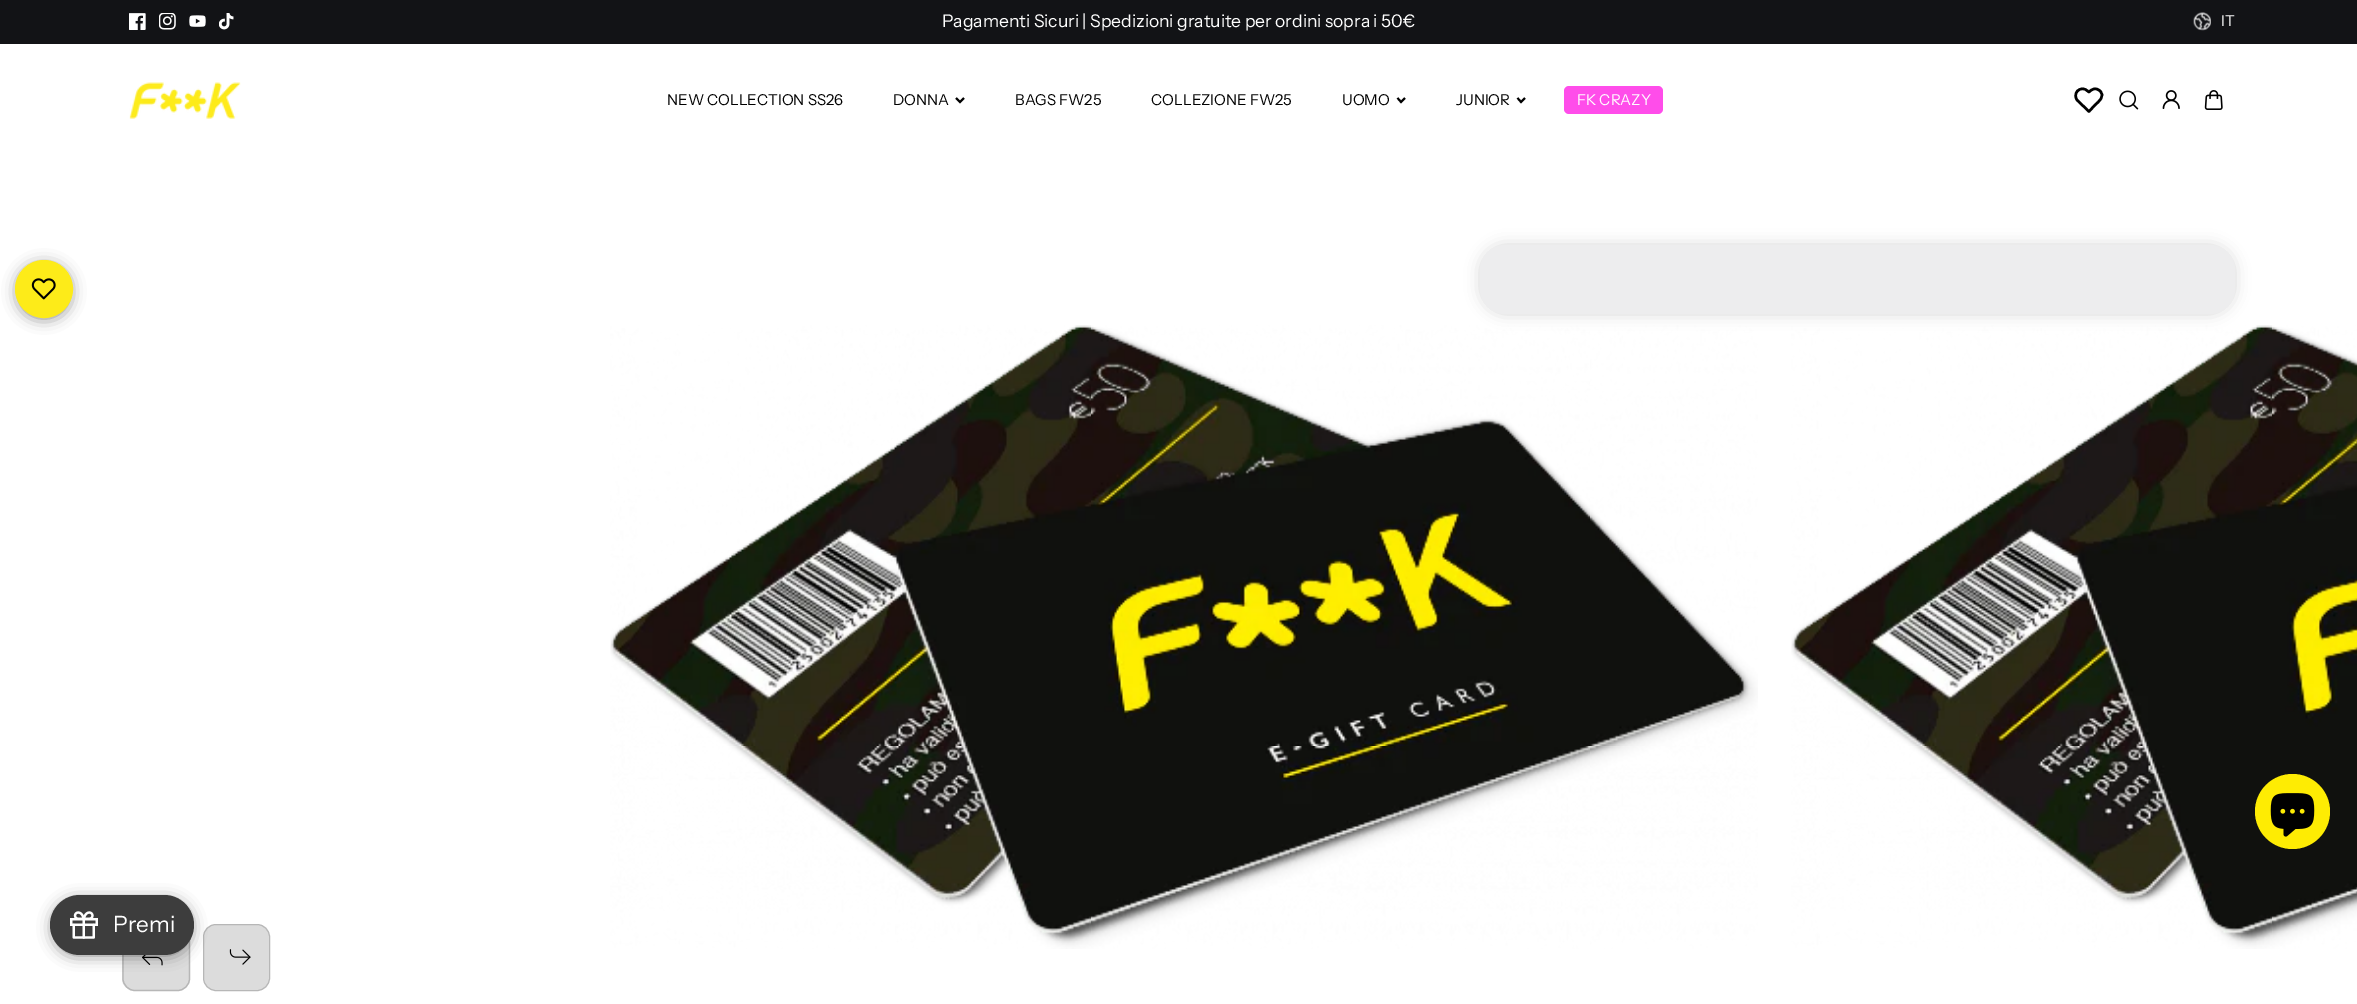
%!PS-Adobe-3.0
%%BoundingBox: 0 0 2357 1004
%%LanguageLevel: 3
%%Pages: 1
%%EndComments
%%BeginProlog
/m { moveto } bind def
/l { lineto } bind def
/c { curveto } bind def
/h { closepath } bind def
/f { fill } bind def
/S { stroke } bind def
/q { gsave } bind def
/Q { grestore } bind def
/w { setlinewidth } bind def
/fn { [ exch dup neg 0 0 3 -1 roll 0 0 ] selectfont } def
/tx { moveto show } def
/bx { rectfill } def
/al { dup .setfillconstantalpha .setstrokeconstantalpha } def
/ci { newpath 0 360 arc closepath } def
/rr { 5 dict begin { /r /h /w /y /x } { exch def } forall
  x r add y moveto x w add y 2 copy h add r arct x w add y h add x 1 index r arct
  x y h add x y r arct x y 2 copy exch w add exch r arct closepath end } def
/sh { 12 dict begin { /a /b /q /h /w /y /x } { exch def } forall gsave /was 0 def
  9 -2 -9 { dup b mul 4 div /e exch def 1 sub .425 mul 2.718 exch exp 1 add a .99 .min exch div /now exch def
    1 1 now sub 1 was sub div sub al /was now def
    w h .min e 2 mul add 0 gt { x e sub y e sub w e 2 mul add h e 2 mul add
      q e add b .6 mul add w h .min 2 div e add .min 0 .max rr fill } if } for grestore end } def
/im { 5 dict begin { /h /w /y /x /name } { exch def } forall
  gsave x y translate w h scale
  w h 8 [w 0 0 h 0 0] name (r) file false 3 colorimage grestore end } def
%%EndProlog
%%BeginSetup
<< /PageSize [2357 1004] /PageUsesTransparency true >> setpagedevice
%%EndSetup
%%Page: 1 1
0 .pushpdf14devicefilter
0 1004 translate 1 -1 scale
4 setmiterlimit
0.071 0.075 0.086 setrgbcolor
0 0 2357 1004 bx
(image0.raw) 129 13 17 17 im
(image1.raw) 159 13 17 17 im
(image2.raw) 189 15 17 12 im
(image3.raw) 219 13 15 17 im
/InstrumentSans-Regular 17.5 fn
1 setgray
(Pagamenti Sicuri | Spedizioni gratuite per ordini sopra i 50€) 942 27 tx
(image4.raw) 2193 12 18 19 im
/InstrumentSans-Regular 15 fn
(IT) 2221 26 tx
0 44 2357 960 bx
(image6.raw) 610 325 1148 624 im
(image7.raw) 1791 325 566 624 im
0 setgray
1480 245 755 69 25 7.5 0.06 sh
1480 245 755 69 25 7.5 0.1 sh
0.929 0.929 0.933 setrgbcolor
1480 245 755 69 25 rr f
0 setgray
18 265 52 53 26 7.5 0.5 sh
0.992 0.922 0.098 setrgbcolor
44 289 28.5 ci q f Q
S
(image5.raw) 31 278 25 22 im
0.863 setgray
178 991 m 135 991 l 128 991 122 985 122 979 c 122 936 l 122 929 128 924 135 924 c 178 924 l 184 924 190 929 190 936 c 190 979 l 190 985 184 991 178 991 c h f
0.718 setgray
1.2 w
177.5 990.5 m 135 990.5 l 128.5 990.5 123 985 123 978.5 c 123 936 l 123 929.5 128.5 924 135 924 c 177.5 924 l 184 924 189.5 929.5 189.5 936 c 189.5 978.5 l 189.5 985 184 990.5 177.5 990.5 c h S
(image8.raw) 142 955 21 11 im
0.863 setgray
203.5 924.5 66 66 12.5 rr q f Q
0.718 setgray
1 w
S
(image9.raw) 229 949 22 16 im
(image10.raw) 129 82 112 37 im
0 setgray
(NEW COLLECTION SS26) 667 105 tx
(DONNA) 893 105 tx
1.9 w
956 98 m 960 102 l 964 98 l S
(BAGS FW25) 1015 105 tx
(COLLEZIONE FW25) 1151 105 tx
(UOMO) 1342 105 tx
1397.5 98 m 1401 102 l 1405 98 l S
(JUNIOR) 1456 105 tx
1517.5 98 m 1521 102 l 1525 98 l S
1 0.302 0.918 setrgbcolor
1564 86 99 28 5 rr f
1 setgray
(FK CRAZY) 1577 105 tx
0 setgray
2.5 w
1 setlinecap
1 setlinejoin
2100 91 m 2096 87 2092 89 2089 92 c 2087.5 91 l 2084.5 88 2080.5 88 2077.5 91 c 2075 93.5 2075 98 2077.5 100.5 c 2089 111.5 l 2095 105 l 2099 101.5 2105.5 96 2100 91 c h S
(image11.raw) 2119 90 20 20 im
(image12.raw) 2162 90 18 19 im
(image13.raw) 2204 90 19 20 im
0.996 0.925 0.012 setrgbcolor
2292.5 811.5 37.5 ci f
(image14.raw) 2270 793 45 44 im
0 setgray
53 900 138 55 27.5 7.5 0.5 sh
0.239 setgray
50 895 144 60 30 rr f
(image15.raw) 70 911 28 28 im
/InstrumentSans-Regular 22.5 fn
1 setgray
(Premi) 113 932 tx
.poppdf14devicefilter showpage
%%EOF
